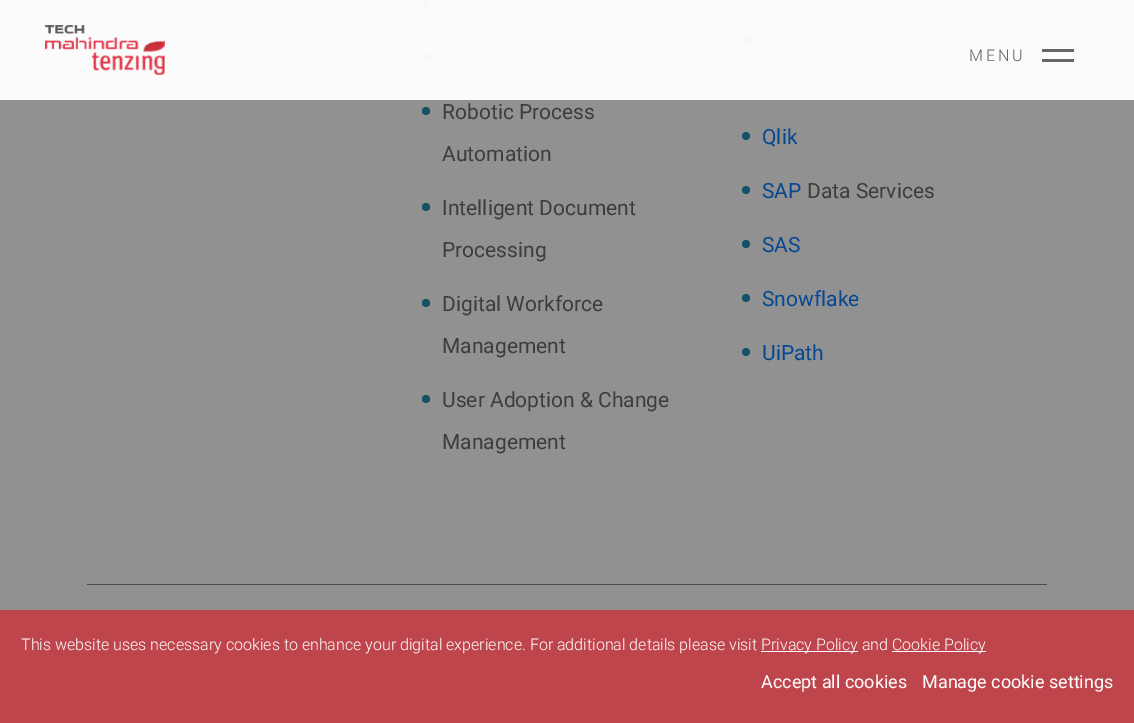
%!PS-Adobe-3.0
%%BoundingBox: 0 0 1134 723
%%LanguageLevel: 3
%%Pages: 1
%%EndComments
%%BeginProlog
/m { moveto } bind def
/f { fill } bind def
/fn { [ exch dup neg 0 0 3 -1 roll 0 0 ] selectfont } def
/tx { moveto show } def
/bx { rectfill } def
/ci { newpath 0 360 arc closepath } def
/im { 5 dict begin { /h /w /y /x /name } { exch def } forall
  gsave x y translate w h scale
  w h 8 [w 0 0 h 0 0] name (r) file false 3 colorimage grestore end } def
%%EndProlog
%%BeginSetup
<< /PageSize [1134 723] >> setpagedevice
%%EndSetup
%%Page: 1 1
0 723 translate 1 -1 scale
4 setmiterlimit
0.569 setgray
0 0 1134 723 bx
0.984 setgray
0 0 1134 100 bx
(image0.raw) 45 25 120 50 im
/Roboto-Light 16 fn
0.4 setgray
969 61 m 3 0 (MENU) ashow
1042 49 32 3 bx
1042 59 32 3 bx
0.965 0.973 0.976 setrgbcolor
426 3 4 ci f
426 57 4 ci f
0.075 0.325 0.396 setrgbcolor
426 111 4 ci f
/Roboto-Regular 21 fn
0.239 setgray
(Robotic Process) 442 119 tx
(Automation) 442 161 tx
0.075 0.325 0.396 setrgbcolor
426 207 4 ci f
0.239 setgray
(Intelligent Document) 442 215 tx
(Processing) 442 257 tx
0.075 0.325 0.396 setrgbcolor
426 303 4 ci f
0.239 setgray
(Digital Workforce) 442 311 tx
(Management) 442 353 tx
0.075 0.325 0.396 setrgbcolor
426 399 4 ci f
0.239 setgray
(User Adoption & Change) 442 407 tx
(Management) 442 449 tx
0.965 0.973 0.976 setrgbcolor
746 40 4 ci f
0.075 0.325 0.396 setrgbcolor
746 136 4 ci f
0.02 0.282 0.569 setrgbcolor
(Qlik) 762 144 tx
0.075 0.325 0.396 setrgbcolor
746 190 4 ci f
0.02 0.282 0.569 setrgbcolor
(SAP) 762 198 tx
0.239 setgray
(Data Services) 807 198 tx
0.075 0.325 0.396 setrgbcolor
746 244 4 ci f
0.02 0.282 0.569 setrgbcolor
(SAS) 762 252 tx
0.075 0.325 0.396 setrgbcolor
746 298 4 ci f
0.02 0.282 0.569 setrgbcolor
(Snowflake) 762 306 tx
0.075 0.325 0.396 setrgbcolor
746 352 4 ci f
0.02 0.282 0.569 setrgbcolor
(UiPath) 762 360 tx
0.294 setgray
87 584 960 1 bx
0.749 0.271 0.302 setrgbcolor
0 610 1134 113 bx
/Roboto-Light 16 fn
1 setgray
(This website uses necessary cookies to enhance your digital experience. For additional details please visit) 21 650 tx
761 651 97 1 bx
(Privacy Policy and) 761 650 tx
892 651 94 1 bx
(Cookie Policy) 892 650 tx
/Roboto-Regular 18 fn
(Accept all cookies) 761 688 tx
(Manage cookie settings) 922 688 tx
showpage
%%EOF
